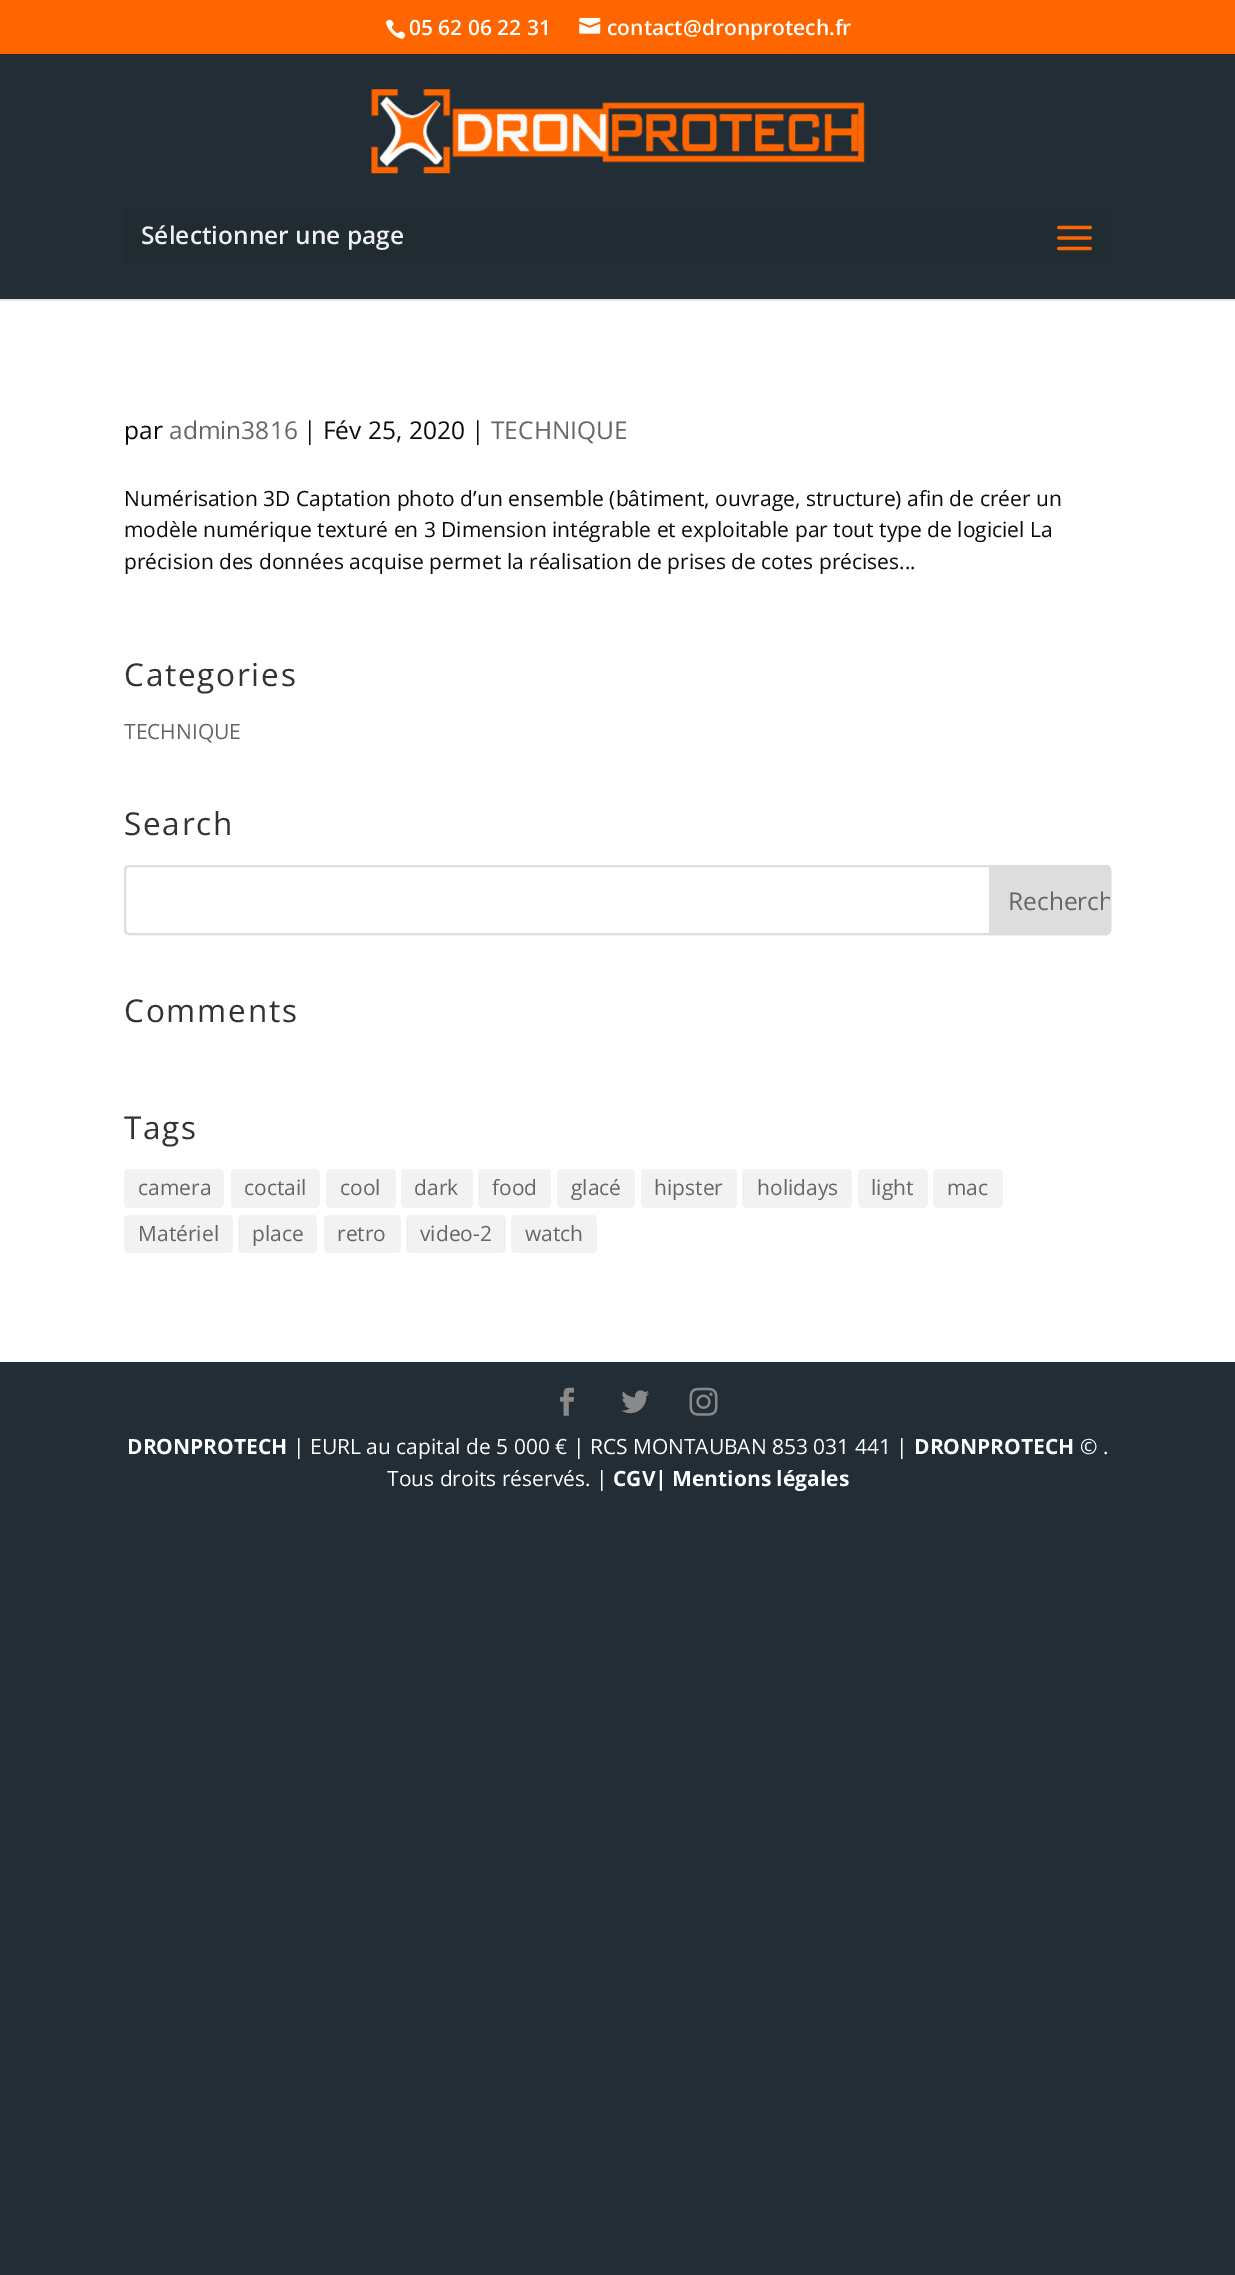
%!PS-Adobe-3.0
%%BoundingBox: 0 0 1235 2275
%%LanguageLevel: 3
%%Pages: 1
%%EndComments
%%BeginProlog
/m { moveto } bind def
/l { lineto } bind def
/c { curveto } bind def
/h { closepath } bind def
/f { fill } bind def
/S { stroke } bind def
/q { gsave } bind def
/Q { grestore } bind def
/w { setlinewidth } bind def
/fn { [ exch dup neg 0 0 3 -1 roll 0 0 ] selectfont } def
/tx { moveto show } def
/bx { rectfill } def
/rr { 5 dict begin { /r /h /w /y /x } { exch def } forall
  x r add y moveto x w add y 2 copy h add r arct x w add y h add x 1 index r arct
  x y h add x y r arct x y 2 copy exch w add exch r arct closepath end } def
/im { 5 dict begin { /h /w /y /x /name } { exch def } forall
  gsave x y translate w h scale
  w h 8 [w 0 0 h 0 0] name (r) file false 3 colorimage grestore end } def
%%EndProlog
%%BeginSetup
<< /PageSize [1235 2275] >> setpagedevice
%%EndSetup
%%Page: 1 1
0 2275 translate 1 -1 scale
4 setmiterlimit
0.133 0.176 0.208 setrgbcolor
0 0 1235 2275 bx
1 0.4 0 setrgbcolor
0 0 1235 54 bx
(image0.raw) 385 19 21 20 im
/OpenSans-SemiBold 21 fn
1 setgray
(05 62 06 22 31) 409 35 tx
(image1.raw) 579 17 22 17 im
(contact@dronprotech.fr) 607 35 tx
0.902 setgray
0 299 m 0 301 l 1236 301 l 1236 56 l 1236 299 l h f
(image2.raw) 371 89 494 85 im
0.125 0.169 0.196 setrgbcolor
124 208 987 56 9 rr f
/OpenSans-SemiBold 24.5 fn
0.937 0.941 0.945 setrgbcolor
(Sélectionner une page) 141 244 tx
(image3.raw) 1057 225 35 26 im
1 setgray
0 301 1235 1061 bx
/OpenSans-Regular 24.5 fn
0.039 setgray
(par) 124 439 tx
0.4 setgray
(admin3816) 169 439 tx
0.039 setgray
(| Fév 25, 2020 |) 303 439 tx
0.4 setgray
(TECHNIQUE) 491 439 tx
/OpenSans-Regular 21 fn
0.039 setgray
(Numérisation 3D Captation photo d’un ensemble \(bâtiment, ouvrage, structure\) afin de créer un) 124 506 tx
(modèle numérique texturé en 3 Dimension intégrable et exploitable par tout type de logiciel La) 124 537 tx
(précision des données acquise permet la réalisation de prises de cotes précises...) 124 569 tx
/OpenSans-Regular 31.5 fn
0.2 setgray
124 686 m 1.75 0 (Categories) ashow
/OpenSans-Regular 21 fn
0.4 setgray
(TECHNIQUE) 124 739 tx
/OpenSans-Regular 31.5 fn
0.2 setgray
124 835 m 1.75 0 (Search) ashow
0.867 setgray
2 w
125 866 985 68 4 rr S
990 866 m 1106 866 l 1108 866 1110 868 1110 870 c 1110 930 l 1110 932 1108 934 1106 934 c 990 934 l h q f Q
S
q
991 866 m 1106 866 l 1108 866 1110 868 1110 870 c 1110 929 l 1110 931 1108 933 1106 933 c 991 933 l h clip newpath
/OpenSans-Regular 24.5 fn
0.4 setgray
(Recherch) 1008 910 tx
Q
0.2 setgray
124 1022 m 1.75 0 (Comments) ashow
124 1139 m 1.75 0 (Tags) ashow
0.949 setgray
124 1169 100 39 5 rr f
/OpenSans-Regular 21 fn
0.4 setgray
(camera) 138 1195 tx
0.949 setgray
231 1169 89 39 5 rr f
0.4 setgray
(coctail) 244 1195 tx
0.949 setgray
326 1169 70 39 5 rr f
0.4 setgray
(cool) 340 1195 tx
0.949 setgray
401 1169 72 39 5 rr f
0.4 setgray
(dark) 414 1195 tx
0.949 setgray
478 1169 73 39 5 rr f
0.4 setgray
(food) 492 1195 tx
0.949 setgray
557 1169 78 39 5 rr f
0.4 setgray
(glacé) 571 1195 tx
0.949 setgray
641 1169 96 39 5 rr f
0.4 setgray
(hipster) 654 1195 tx
0.949 setgray
742 1169 110 39 5 rr f
0.4 setgray
(holidays) 757 1195 tx
0.949 setgray
858 1169 70 39 5 rr f
0.4 setgray
(light) 871 1195 tx
0.949 setgray
933 1169 70 39 5 rr f
0.4 setgray
(mac) 947 1195 tx
0.949 setgray
124 1215 109 38 5 rr f
0.4 setgray
(Matériel) 138 1241 tx
0.949 setgray
238 1215 79 38 5 rr f
0.4 setgray
(place) 252 1241 tx
0.949 setgray
324 1215 77 38 5 rr f
0.4 setgray
(retro) 337 1241 tx
0.949 setgray
406 1215 100 38 5 rr f
0.4 setgray
(video-2) 420 1241 tx
0.949 setgray
511 1215 86 38 5 rr f
0.4 setgray
(watch) 525 1241 tx
(image4.raw) 560 1387 14 29 im
(image5.raw) 621 1390 28 24 im
(image6.raw) 689 1387 29 29 im
/OpenSans-Bold 21 fn
1 setgray
(DRONPROTECH) 127 1454 tx
/OpenSans-Regular 21 fn
(| EURL au capital de 5 000 € | RCS MONTAUBAN 853 031 441 |) 293 1454 tx
/OpenSans-Bold 21 fn
(DRONPROTECH) 914 1454 tx
/OpenSans-Regular 21 fn
(© .) 1080 1454 tx
(Tous droits réservés. |) 387 1486 tx
/OpenSans-Bold 21 fn
(CGV| Mentions légales) 613 1486 tx
showpage
%%EOF
